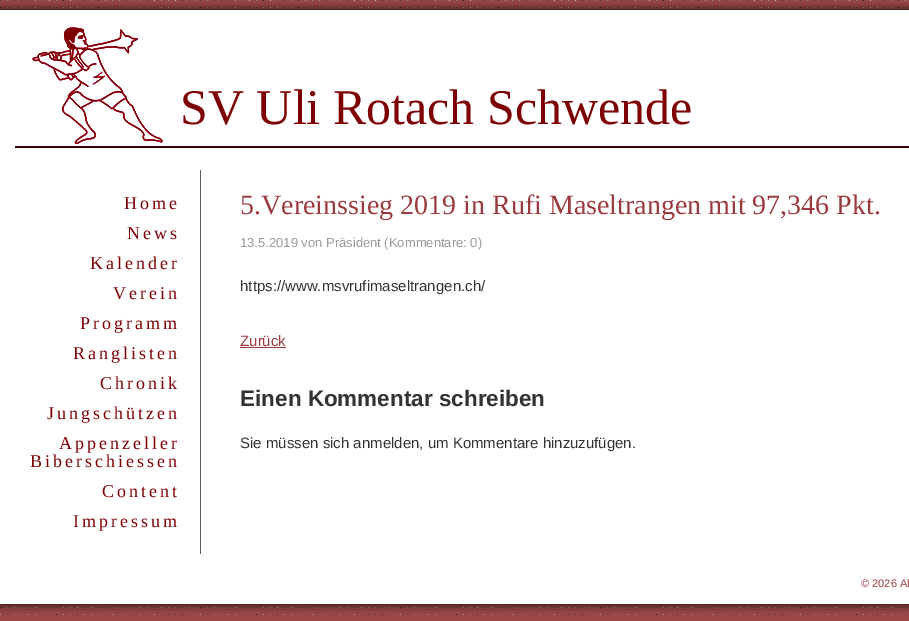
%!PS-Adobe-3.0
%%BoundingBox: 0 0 909 621
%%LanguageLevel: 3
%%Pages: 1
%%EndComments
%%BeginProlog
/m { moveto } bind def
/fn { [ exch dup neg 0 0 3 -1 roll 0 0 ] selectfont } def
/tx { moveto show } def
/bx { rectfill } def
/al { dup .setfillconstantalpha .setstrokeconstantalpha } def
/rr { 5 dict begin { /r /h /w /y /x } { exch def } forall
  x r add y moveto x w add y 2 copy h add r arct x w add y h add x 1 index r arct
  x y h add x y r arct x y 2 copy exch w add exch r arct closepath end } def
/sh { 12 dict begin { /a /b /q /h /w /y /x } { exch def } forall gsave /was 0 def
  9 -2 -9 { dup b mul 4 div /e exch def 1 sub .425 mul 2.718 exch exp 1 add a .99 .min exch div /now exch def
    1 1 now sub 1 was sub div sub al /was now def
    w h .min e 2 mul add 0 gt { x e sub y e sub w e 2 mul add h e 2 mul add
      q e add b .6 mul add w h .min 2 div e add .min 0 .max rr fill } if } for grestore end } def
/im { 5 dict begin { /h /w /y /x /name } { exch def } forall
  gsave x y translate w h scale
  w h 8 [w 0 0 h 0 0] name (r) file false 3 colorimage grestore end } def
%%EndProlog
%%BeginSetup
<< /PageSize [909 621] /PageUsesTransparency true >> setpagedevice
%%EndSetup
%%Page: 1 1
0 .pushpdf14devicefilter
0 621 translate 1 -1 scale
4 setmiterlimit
1 setgray
0 0 909 621 bx
(image0.raw) 0 0 909 621 im
0 setgray
0 10 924 594 0 5 1 sh
1 setgray
0 10 909 594 bx
(image1.raw) 15 27 894 121 im
/LiberationSerif-Regular 50 fn
0.49 0 0.012 setrgbcolor
(SV Uli Rotach Schwende) 180 124 tx
0.373 setgray
200 170 1 384 bx
/LiberationSerif-Regular 18 fn
0.49 0 0.012 setrgbcolor
124 209 m 3 0 (Home) ashow
127 239 m 3 0 (News) ashow
90 269 m 3 0 (Kalender) ashow
113 299 m 3 0 (Verein) ashow
80 329 m 3 0 (Programm) ashow
73 359 m 3 0 (Ranglisten) ashow
100 389 m 3 0 (Chronik) ashow
47 419 m 3 0 (Jungschützen) ashow
59 449 m 3 0 (Appenzeller) ashow
30 467 m 3 0 (Biberschiessen) ashow
102 497 m 3 0 (Content) ashow
73 527 m 3 0 (Impressum) ashow
/LiberationSerif-Regular 28 fn
0.608 0.227 0.239 setrgbcolor
(5.Vereinssieg 2019 in Rufi Maseltrangen mit 97,346 Pkt.) 240 214 tx
/LiberationSans-Regular 13 fn
0.6 setgray
(13.5.2019 von Präsident \(Kommentare: 0\)) 240 247 tx
/LiberationSans-Regular 15 fn
0.2 setgray
(https://www.msvrufimaseltrangen.ch/) 240 291 tx
0.608 0.227 0.239 setrgbcolor
(Zurück) 240 346 tx
240 347 46 1 bx
/LiberationSans-Bold 22.5 fn
0.2 setgray
(Einen Kommentar schreiben) 240 406 tx
/LiberationSans-Regular 15 fn
(Sie müssen sich anmelden, um Kommentare hinzuzufügen.) 240 448 tx
/LiberationSans-Regular 11 fn
0.608 0.227 0.239 setrgbcolor
(© 2026 Al) 861 587 tx
.poppdf14devicefilter showpage
%%EOF
